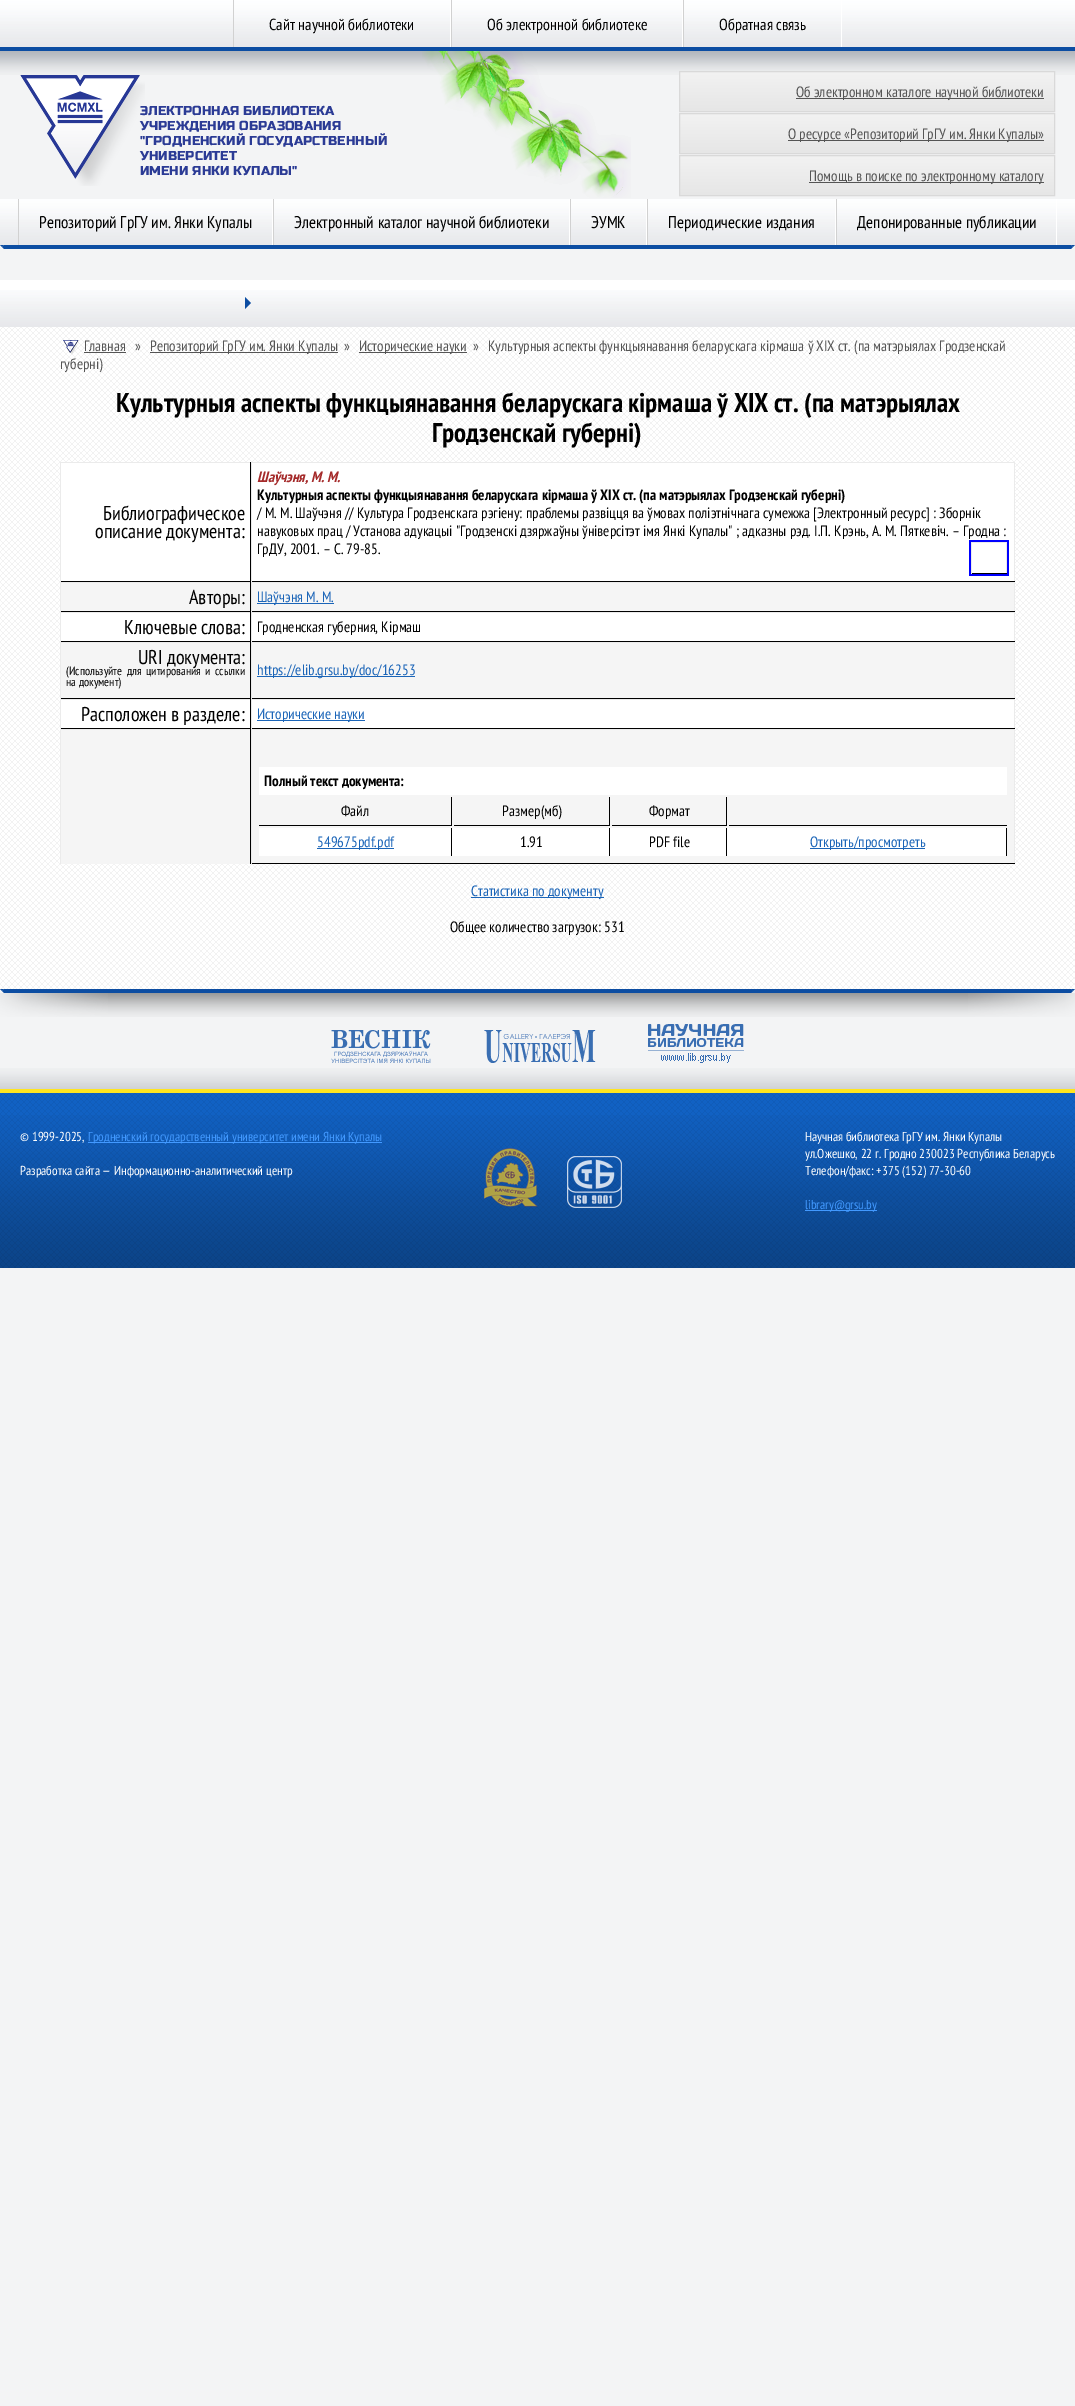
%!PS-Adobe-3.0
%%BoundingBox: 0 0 1075 2406
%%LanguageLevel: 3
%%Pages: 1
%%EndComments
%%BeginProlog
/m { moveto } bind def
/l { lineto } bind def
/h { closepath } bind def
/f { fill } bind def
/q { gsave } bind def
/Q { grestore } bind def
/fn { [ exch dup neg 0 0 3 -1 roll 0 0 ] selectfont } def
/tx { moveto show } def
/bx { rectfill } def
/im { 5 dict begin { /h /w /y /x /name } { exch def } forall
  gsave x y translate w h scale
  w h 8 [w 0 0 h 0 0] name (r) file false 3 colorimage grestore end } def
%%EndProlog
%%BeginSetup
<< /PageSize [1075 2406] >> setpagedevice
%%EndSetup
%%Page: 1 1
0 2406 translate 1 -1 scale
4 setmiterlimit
0.953 0.957 0.961 setrgbcolor
0 0 1075 2406 bx
(image0.raw) 0 0 1075 47 im
0.047 0.302 0.635 setrgbcolor
0 47 1075 4 bx
1 setgray
450 0 1 47 bx
0.82 setgray
233 0 1 47 bx
/PTSansNarrow-Regular 16 fn
0 setgray
(Сайт научной библиотеки) 269 30 tx
1 setgray
682 0 1 47 bx
0.82 setgray
451 0 1 47 bx
0 setgray
(Об электронной библиотеке) 487 30 tx
1 setgray
841 0 1 47 bx
0.82 setgray
683 0 1 47 bx
0 setgray
(Обратная связь) 719 30 tx
(image1.raw) 0 51 1075 24 im
(image2.raw) 20 75 125 111 im
/RussoOne-Regular 13 fn
0.169 0.231 0.584 setrgbcolor
(ЭЛЕКТРОННАЯ БИБЛИОТЕКА) 140 115 tx
(УЧРЕЖДЕНИЯ ОБРАЗОВАНИЯ) 140 130 tx
("ГРОДНЕНСКИЙ ГОСУДАРСТВЕННЫЙ) 140 145 tx
(УНИВЕРСИТЕТ) 140 160 tx
(ИМЕНИ ЯНКИ КУПАЛЫ") 140 175 tx
(image3.raw) 422 51 209 147 im
q 680 72 m 1054 72 l 1054 111 l 680 111 l h clip newpath
<< /ShadingType 2 /ColorSpace /DeviceRGB /Coords [680 72 680 111] /Extend [true true] /Function << /FunctionType 2 /Domain [0 1] /C0 [0.949 0.949 0.949] /C1 [0.902 0.902 0.902] /N 1 >> >> shfill Q
0.851 setgray
679.5 71.5 375 40 rectstroke
0.333 setgray
796 98 248 1 bx
/PTSansNarrow-Regular 15 fn
(Об электронном каталоге научной библиотеки) 796 97 tx
q 680 114 m 1054 114 l 1054 153 l 680 153 l h clip newpath
<< /ShadingType 2 /ColorSpace /DeviceRGB /Coords [680 114 680 153] /Extend [true true] /Function << /FunctionType 2 /Domain [0 1] /C0 [0.949 0.949 0.949] /C1 [0.902 0.902 0.902] /N 1 >> >> shfill Q
0.851 setgray
679.5 113.5 375 40 rectstroke
0.333 setgray
788 140 256 1 bx
(О ресурсе «Репозиторий ГрГУ им. Янки Купалы») 788 139 tx
q 680 156 m 1054 156 l 1054 195 l 680 195 l h clip newpath
<< /ShadingType 2 /ColorSpace /DeviceRGB /Coords [680 156 680 195] /Extend [true true] /Function << /FunctionType 2 /Domain [0 1] /C0 [0.949 0.949 0.949] /C1 [0.902 0.902 0.902] /N 1 >> >> shfill Q
0.851 setgray
679.5 155.5 375 40 rectstroke
0.333 setgray
809 182 235 1 bx
(Помощь в поиске по электронному каталогу) 809 181 tx
(image4.raw) 0 199 1075 46 im
1 setgray
272 199 1 46 bx
0.82 setgray
18 199 1 46 bx
/PTSansNarrow-Regular 17 fn
0 setgray
(Репозиторий ГрГУ им. Янки Купалы) 39 228 tx
1 setgray
569 199 1 46 bx
0.82 setgray
273 199 1 46 bx
0 setgray
(Электронный каталог научной библиотеки) 294 228 tx
1 setgray
646 199 1 46 bx
0.82 setgray
570 199 1 46 bx
0 setgray
(ЭУМК) 591 228 tx
1 setgray
835 199 1 46 bx
0.82 setgray
647 199 1 46 bx
0 setgray
(Периодические издания) 668 228 tx
1 setgray
1056 199 1 46 bx
0.82 setgray
836 199 1 46 bx
0 setgray
(Депонированные публикации) 857 228 tx
0.047 0.302 0.635 setrgbcolor
0 245 m 4 245 l 2 247 l h f
4 245 m 4 249 l 2 247 l h f
4 245 1067 4 bx
1071 245 m 1075 245 l 1073 247 l h f
1071 249 m 1071 245 l 1073 247 l h f
1 setgray
0 280 1075 10 bx
(image5.raw) 0 290 1075 37 im
0.047 0.302 0.635 setrgbcolor
245 309 m 245 297 l 251 303 l h f
1 setgray
0 327 1075 662 bx
(image6.raw) 0 327 1075 662 im
0.333 setgray
359 352 108 1 bx
/PTSansNarrow-Regular 15 fn
(Исторические науки) 359 351 tx
(») 473 351 tx
(Культурныя аспекты функцыянавання беларускага кiрмаша ў ХІХ ст. \(па матэрыялах Гродзенскай) 488 351 tx
(губернi\)) 60 369 tx
150 352 188 1 bx
(Репозиторий ГрГУ им. Янки Купалы) 150 351 tx
(») 344 351 tx
(image7.raw) 63 340 16 14 im
(Главная) 84 351 tx
84 352 42 1 bx
(») 135 351 tx
/PTSansNarrow-Bold 27 fn
0 setgray
(Культурныя аспекты функцыянавання беларускага кiрмаша ў ХІХ ст. \(па матэрыялах) 116 412 tx
(Гродзенскай губернi\)) 432 442 tx
1 setgray
61 463 953 118 bx
0.922 setgray
60 462 955 1 bx
0 setgray
250 462 1 120 bx
60 581 191 1 bx
0.922 setgray
60 462 1 120 bx
/PTSansNarrow-Regular 20 fn
0 setgray
(Библиографическое) 103 520 tx
(описание документа:) 95 538 tx
0.922 setgray
1014 462 1 120 bx
0 setgray
251 581 764 1 bx
0.922 setgray
251 462 1 120 bx
/PTSansNarrow-BoldItalic 15 fn
0.647 0.165 0.165 setrgbcolor
(Шаўчэня, М. М.) 257 482 tx
/PTSansNarrow-Bold 15 fn
0 setgray
(Культурныя аспекты функцыянавання беларускага кiрмаша ў ХІХ ст. \(па матэрыялах Гродзенскай губернi\)) 257 500 tx
/PTSansNarrow-Regular 15 fn
(/ М. М. Шаўчэня // Культура Гродзенскага рэгіену: праблемы развіцця ва ўмовах поліэтнічнага сумежжа [Электронный ресурс] : Зборнік) 257 518 tx
(навуковых прац / Установа адукацыі "Гродзенскі дзяржаўны ўніверсітэт імя Янкі Купалы" ; адказны рэд. I.П. Крэнь, А. М. Пяткевіч. – Гродна :) 257 536 tx
(ГрДУ, 2001. – С. 79-85.) 257 554 tx
0 0 1 setrgbcolor
969 540 40 36 bx
1 setgray
972 543 34 30 bx
0.922 setgray
971 542 36 1 bx
1006 542 1 32 bx
0 setgray
971 573 36 1 bx
0.922 setgray
971 542 1 32 bx
0.961 setgray
61 583 953 28 bx
0.922 setgray
60 582 955 1 bx
0 setgray
250 582 1 30 bx
60 611 191 1 bx
0.922 setgray
60 582 1 30 bx
/PTSansNarrow-Regular 20 fn
0 setgray
(Авторы:) 189 604 tx
0.922 setgray
1014 582 1 30 bx
0 setgray
251 611 764 1 bx
0.922 setgray
251 582 1 30 bx
0.106 0.396 0.722 setrgbcolor
257 603 77 1 bx
/PTSansNarrow-Regular 15 fn
(Шаўчэня М. М.) 257 602 tx
1 setgray
61 613 953 28 bx
0.922 setgray
60 612 955 1 bx
0 setgray
250 612 1 30 bx
60 641 191 1 bx
0.922 setgray
60 612 1 30 bx
/PTSansNarrow-Regular 20 fn
0 setgray
(Ключевые слова:) 124 634 tx
0.922 setgray
1014 612 1 30 bx
0 setgray
251 641 764 1 bx
0.922 setgray
251 612 1 30 bx
/PTSansNarrow-Regular 15 fn
0 setgray
(Гродненская губерния, Кірмаш) 257 632 tx
0.961 setgray
61 643 953 55 bx
0.922 setgray
60 642 955 1 bx
0 setgray
250 642 1 57 bx
60 698 191 1 bx
0.922 setgray
60 642 1 57 bx
/PTSansNarrow-Regular 20 fn
0 setgray
(URI документа:) 138 664 tx
/PTSansNarrow-Regular 12 fn
66 675 m 2 0 32 (\(Используйте для цитирования и ссылки) widthshow
(на документ\)) 66 686 tx
0.922 setgray
1014 642 1 57 bx
0 setgray
251 698 764 1 bx
0.922 setgray
251 642 1 57 bx
0.106 0.396 0.722 setrgbcolor
257 676 158 1 bx
/PTSansNarrow-Regular 15 fn
(https://elib.grsu.by/doc/16253) 257 675 tx
1 setgray
61 700 953 28 bx
0.922 setgray
60 699 955 1 bx
0 setgray
250 699 1 30 bx
60 728 191 1 bx
0.922 setgray
60 699 1 30 bx
/PTSansNarrow-Regular 20 fn
0 setgray
(Расположен в разделе:) 81 721 tx
0.922 setgray
1014 699 1 30 bx
0 setgray
251 728 764 1 bx
0.922 setgray
251 699 1 30 bx
0.106 0.396 0.722 setrgbcolor
257 720 108 1 bx
/PTSansNarrow-Regular 15 fn
(Исторические науки) 257 719 tx
0.961 setgray
61 730 953 134 bx
0.922 setgray
60 729 955 1 bx
0 setgray
250 729 1 135 bx
0.922 setgray
60 729 1 135 bx
1014 729 1 135 bx
0 setgray
251 863 764 1 bx
0.922 setgray
251 729 1 135 bx
1 setgray
259 767 748 28 bx
/PTSansNarrow-Bold 15 fn
0 setgray
(Полный текст документа:) 264 786 tx
451 797 1 29 bx
259 825 193 1 bx
/PTSansNarrow-Regular 15 fn
(Файл) 341 816 tx
609 797 1 29 bx
454 825 156 1 bx
(Размер\(мб\)) 502 816 tx
726 797 1 29 bx
612 825 115 1 bx
(Формат) 649 816 tx
729 825 278 1 bx
1 setgray
259 828 747 28 bx
0 setgray
451 828 1 28 bx
0.106 0.396 0.722 setrgbcolor
317 848 77 1 bx
(549675pdf.pdf) 317 847 tx
0 setgray
609 828 1 28 bx
(1.91) 520 847 tx
726 828 1 28 bx
(PDF file) 649 847 tx
1006 828 1 28 bx
0.106 0.396 0.722 setrgbcolor
810 848 115 1 bx
(Открыть/просмотреть) 810 847 tx
471 897 133 1 bx
(Статистика по документу) 471 896 tx
0 setgray
(Общее количество загрузок: 531) 450 932 tx
0.047 0.302 0.635 setrgbcolor
0 989 m 4 989 l 2 991 l h f
4 989 m 4 993 l 2 991 l h f
4 989 1067 4 bx
1071 989 m 1075 989 l 1073 991 l h f
1071 993 m 1071 989 l 1073 991 l h f
(image8.raw) 0 993 108 24 im
(image9.raw) 108 993 860 24 im
(image10.raw) 968 993 107 24 im
(image11.raw) 0 1068 1075 21 im
(image12.raw) 331 1030 100 33 im
(image13.raw) 484 1030 112 33 im
(image14.raw) 648 1024 96 39 im
1 0.898 0.122 setrgbcolor
0 1089 1075 4 bx
0.067 0.38 0.765 setrgbcolor
0 1093 1075 175 bx
(image15.raw) 0 1093 1075 175 im
(image16.raw) 0 1115 1075 153 im
/PTSansNarrow-Regular 13 fn
1 setgray
(© 1999-2025,) 20 1141 tx
0.259 0.6 1 setrgbcolor
88 1142 294 1 bx
(Гродненский государственный университет имени Янки Купалы) 88 1141 tx
1 setgray
(Разработка сайта — Информационно-аналитический центр) 20 1175 tx
(image17.raw) 484 1148 54 59 im
(image18.raw) 567 1156 55 52 im
(Научная библиотека ГрГУ им. Янки Купалы) 805 1141 tx
(ул.Ожешко, 22 г. Гродно 230023 Республика Беларусь) 805 1158 tx
(Телефон/факс: +375 \(152\) 77-30-60) 805 1175 tx
0.259 0.6 1 setrgbcolor
805 1210 72 1 bx
(library@grsu.by) 805 1209 tx
showpage
%%EOF
